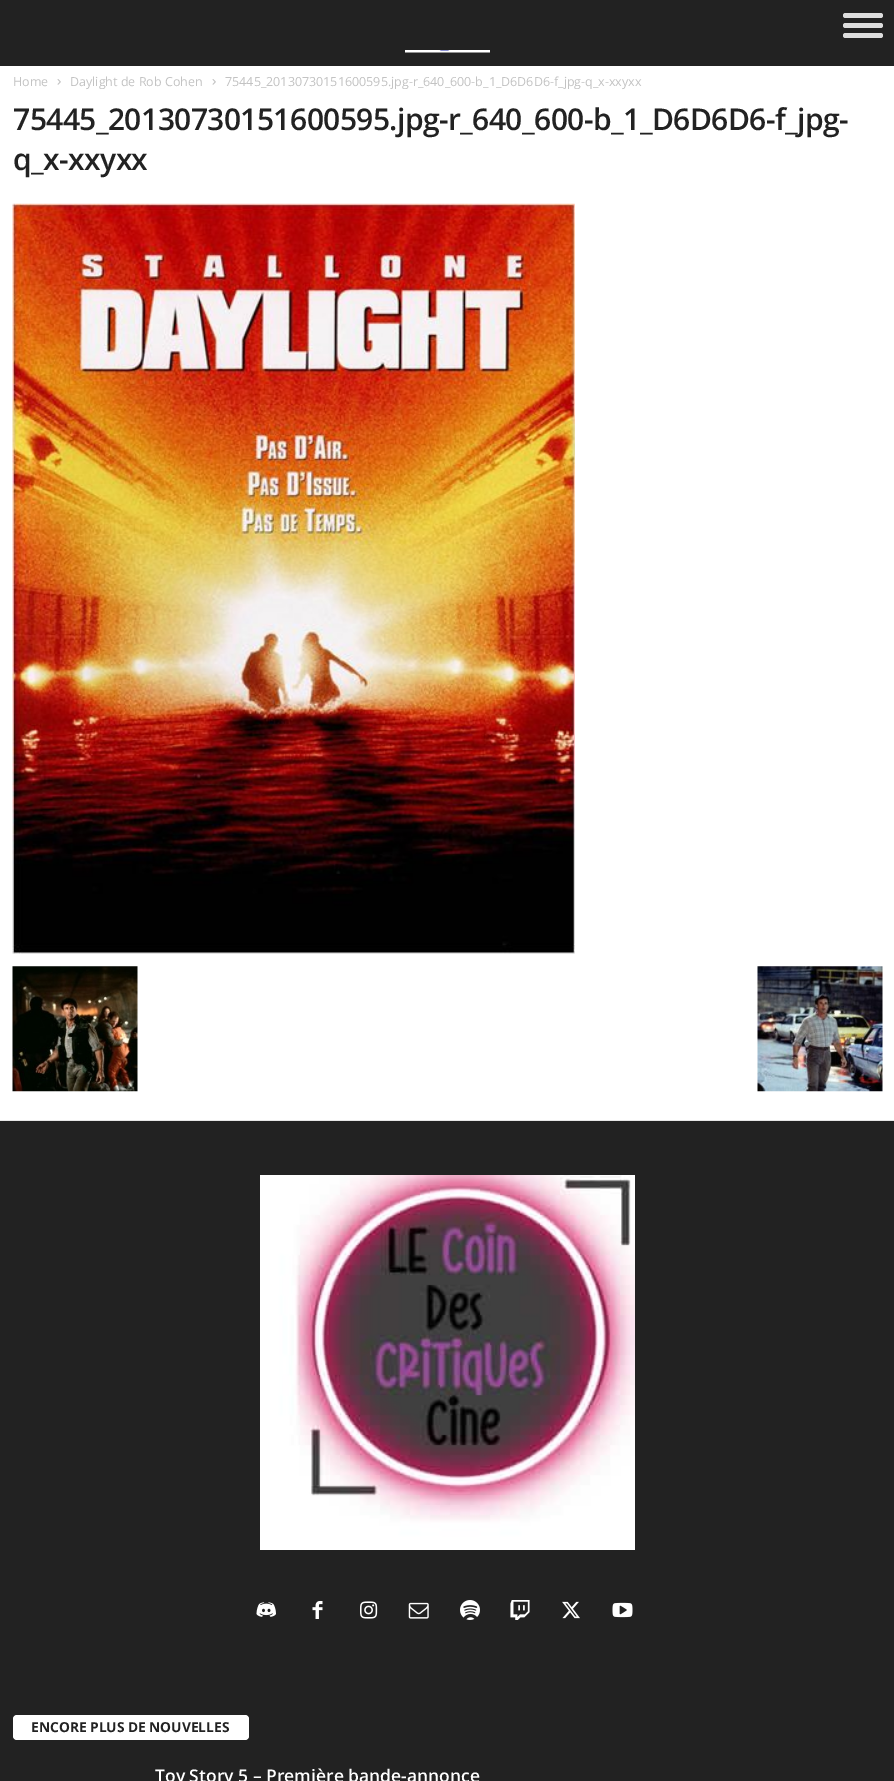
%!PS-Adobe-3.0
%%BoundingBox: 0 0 894 1781
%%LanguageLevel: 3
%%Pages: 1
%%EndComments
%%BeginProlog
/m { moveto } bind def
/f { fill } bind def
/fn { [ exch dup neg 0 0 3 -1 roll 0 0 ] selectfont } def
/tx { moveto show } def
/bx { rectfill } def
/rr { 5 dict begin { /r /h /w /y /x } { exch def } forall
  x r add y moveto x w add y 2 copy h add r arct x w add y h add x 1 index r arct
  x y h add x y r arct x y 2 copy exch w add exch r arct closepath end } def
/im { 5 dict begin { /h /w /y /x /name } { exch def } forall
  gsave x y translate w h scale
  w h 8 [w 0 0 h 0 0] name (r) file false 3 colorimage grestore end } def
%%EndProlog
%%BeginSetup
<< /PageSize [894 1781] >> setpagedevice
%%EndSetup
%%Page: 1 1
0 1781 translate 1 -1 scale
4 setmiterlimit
1 setgray
0 0 894 1781 bx
0.133 setgray
0 0 894 66 bx
0.867 setgray
843 13 40 5 2.5 rr f
843 23 40 5 2.5 rr f
843 33 40 5 2.5 rr f
(image0.raw) 405 50 85 3 im
0.902 setgray
0 1120 894 1 bx
/OpenSans-Regular 12.5 fn
0.765 setgray
(Home) 13 86 tx
(image1.raw) 57 79 4 6 im
(Daylight de Rob Cohen) 70 86 tx
(image1.raw) 212 79 4 6 im
(75445_20130730151600595.jpg-r_640_600-b_1_D6D6D6-f_jpg-q_x-xxyxx) 225 86 tx
/OpenSans-SemiBold 30 fn
0.133 setgray
13 130 m -0.6 0 (75445_20130730151600595.jpg-r_640_600-b_1_D6D6D6-f_jpg-) ashow
13 170 m -0.6 0 (q_x-xxyxx) ashow
(image2.raw) 12 203 563 751 im
(image3.raw) 12 966 126 126 im
(image4.raw) 757 966 126 126 im
0 1121 894 660 bx
(image5.raw) 260 1175 375 375 im
(image6.raw) 256 1602 20 15 im
(image7.raw) 312 1601 11 18 im
(image8.raw) 360 1601 18 18 im
(image9.raw) 408 1602 21 17 im
(image10.raw) 460 1600 20 20 im
(image11.raw) 510 1600 20 20 im
(image12.raw) 562 1601 18 18 im
(image13.raw) 612 1602 21 16 im
1 setgray
13 1715 236 25 4 rr f
/OpenSans-Bold 13.75 fn
0.133 setgray
(ENCORE PLUS DE NOUVELLES) 31 1732 tx
/OpenSans-SemiBold 17.5 fn
1 setgray
(Toy Story 5 – Première bande-annonce) 155 1782 tx
showpage
%%EOF
